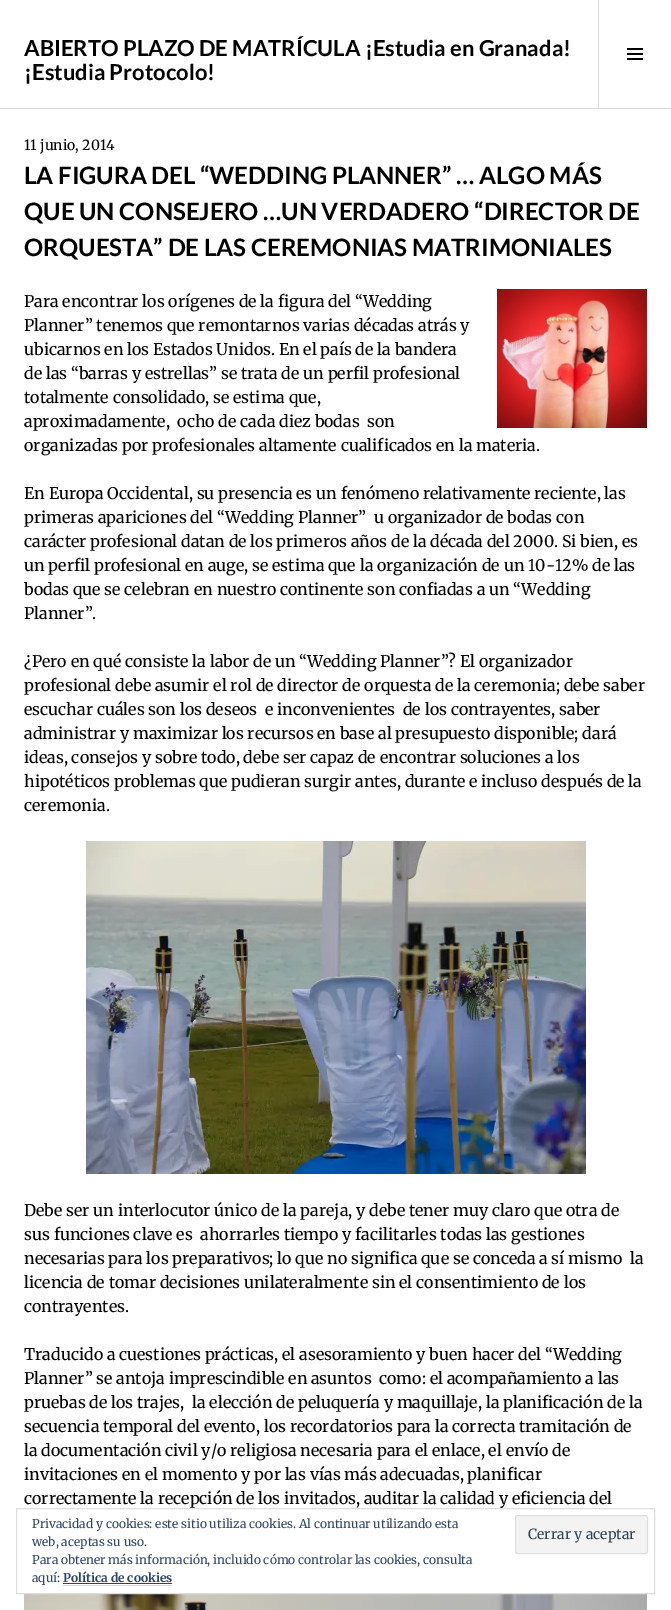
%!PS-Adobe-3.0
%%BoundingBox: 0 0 671 1610
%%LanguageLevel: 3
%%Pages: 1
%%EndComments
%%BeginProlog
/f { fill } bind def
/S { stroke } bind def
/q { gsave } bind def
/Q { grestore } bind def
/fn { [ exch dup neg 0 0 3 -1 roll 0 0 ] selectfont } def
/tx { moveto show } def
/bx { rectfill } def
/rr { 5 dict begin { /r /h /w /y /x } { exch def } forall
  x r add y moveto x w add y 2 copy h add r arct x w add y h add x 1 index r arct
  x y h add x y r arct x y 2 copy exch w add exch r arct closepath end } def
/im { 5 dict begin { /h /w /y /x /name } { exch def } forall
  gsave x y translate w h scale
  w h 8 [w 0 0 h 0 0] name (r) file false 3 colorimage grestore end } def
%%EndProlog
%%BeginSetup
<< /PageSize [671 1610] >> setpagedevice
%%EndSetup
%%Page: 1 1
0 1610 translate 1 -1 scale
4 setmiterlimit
1 setgray
0 0 671 1610 bx
0.851 setgray
0 108 671 1 bx
/Lato-Bold 22 fn
0 setgray
(ABIERTO PLAZO DE MATRÍCULA ¡Estudia en Granada!) 24 56 tx
(¡Estudia Protocolo!) 24 80 tx
0.851 setgray
598 0 1 108 bx
(image0.raw) 627 48 16 12 im
/Merriweather-Regular 14 fn
0 setgray
(11 junio, 2014) 24 150 tx
/Lato-Bold 24 fn
(LA FIGURA DEL “WEDDING PLANNER” … ALGO MÁS) 24 184 tx
(QUE UN CONSEJERO …UN VERDADERO “DIRECTOR DE) 24 220 tx
(ORQUESTA” DE LAS CEREMONIAS MATRIMONIALES) 24 256 tx
/Merriweather-Regular 16 fn
(Para encontrar los orígenes de la figura del “Wedding) 24 307 tx
(image1.raw) 497 289 150 139 im
(Planner” tenemos que remontarnos varias décadas atrás y) 24 331 tx
(ubicarnos en los Estados Unidos. En el país de la bandera) 24 355 tx
(de las “barras y estrellas” se trata de un perfil profesional) 24 379 tx
(totalmente consolidado, se estima que,) 24 403 tx
(aproximadamente,  ocho de cada diez bodas  son) 24 427 tx
(organizadas por profesionales altamente cualificados en la materia.) 24 451 tx
(En Europa Occidental, su presencia es un fenómeno relativamente reciente, las) 24 499 tx
(primeras apariciones del “Wedding Planner”  u organizador de bodas con) 24 523 tx
(carácter profesional datan de los primeros años de la década del 2000. Si bien, es) 24 547 tx
(un perfil profesional en auge, se estima que la organización de un 10-12% de las) 24 571 tx
(bodas que se celebran en nuestro continente son confiadas a un “Wedding) 24 595 tx
(Planner”.) 24 619 tx
(¿Pero en qué consiste la labor de un “Wedding Planner”? El organizador) 24 667 tx
(profesional debe asumir el rol de director de orquesta de la ceremonia; debe saber) 24 691 tx
(escuchar cuáles son los deseos  e inconvenientes  de los contrayentes, saber) 24 715 tx
(administrar y maximizar los recursos en base al presupuesto disponible; dará) 24 739 tx
(ideas, consejos y sobre todo, debe ser capaz de encontrar soluciones a los) 24 763 tx
(hipotéticos problemas que pudieran surgir antes, durante e incluso después de la) 24 787 tx
(ceremonia.) 24 811 tx
(image2.raw) 86 841 500 333 im
(Debe ser un interlocutor único de la pareja, y debe tener muy claro que otra de) 24 1216 tx
(sus funciones clave es  ahorrarles tiempo y facilitarles todas las gestiones) 24 1240 tx
(necesarias para los preparativos; lo que no significa que se conceda a sí mismo  la) 24 1264 tx
(licencia de tomar decisiones unilateralmente sin el consentimiento de los) 24 1288 tx
(contrayentes.) 24 1312 tx
(Traducido a cuestiones prácticas, el asesoramiento y buen hacer del “Wedding) 24 1360 tx
(Planner” se antoja imprescindible en asuntos  como: el acompañamiento a las) 24 1384 tx
(pruebas de los trajes,  la elección de peluquería y maquillaje, la planificación de la) 24 1408 tx
(secuencia temporal del evento, los recordatorios para la correcta tramitación de) 24 1432 tx
(la documentación civil y/o religiosa necesaria para el enlace, el envío de) 24 1456 tx
(invitaciones en el momento y por las vías más adecuadas, planificar) 24 1480 tx
(correctamente la recepción de los invitados, auditar la calidad y eficiencia del) 24 1504 tx
(image3.raw) 24 1594 623 16 im
0.871 setgray
16.5 1508.5 638 85 rectstroke
/Merriweather-Regular 12 fn
0.18 0.267 0.404 setrgbcolor
(Privacidad y cookies: este sitio utiliza cookies. Al continuar utilizando esta) 32 1528 tx
(web, aceptas su uso.) 32 1546 tx
0.953 setgray
515.5 1515.5 132 38 2.5 rr q f Q
0.871 setgray
S
/Merriweather-Regular 14 fn
0.18 0.267 0.325 setrgbcolor
(Cerrar y aceptar) 528 1539 tx
/Merriweather-Regular 12 fn
0.18 0.267 0.404 setrgbcolor
(Para obtener más información, incluido cómo controlar las cookies, consulta) 32 1564 tx
(aquí:) 32 1582 tx
/Merriweather-Bold 12 fn
(Política de cookies) 63 1582 tx
0.851 setgray
63 1585 109 1 bx
0.18 0.267 0.404 setrgbcolor
63 1583 109 1 bx
showpage
%%EOF
